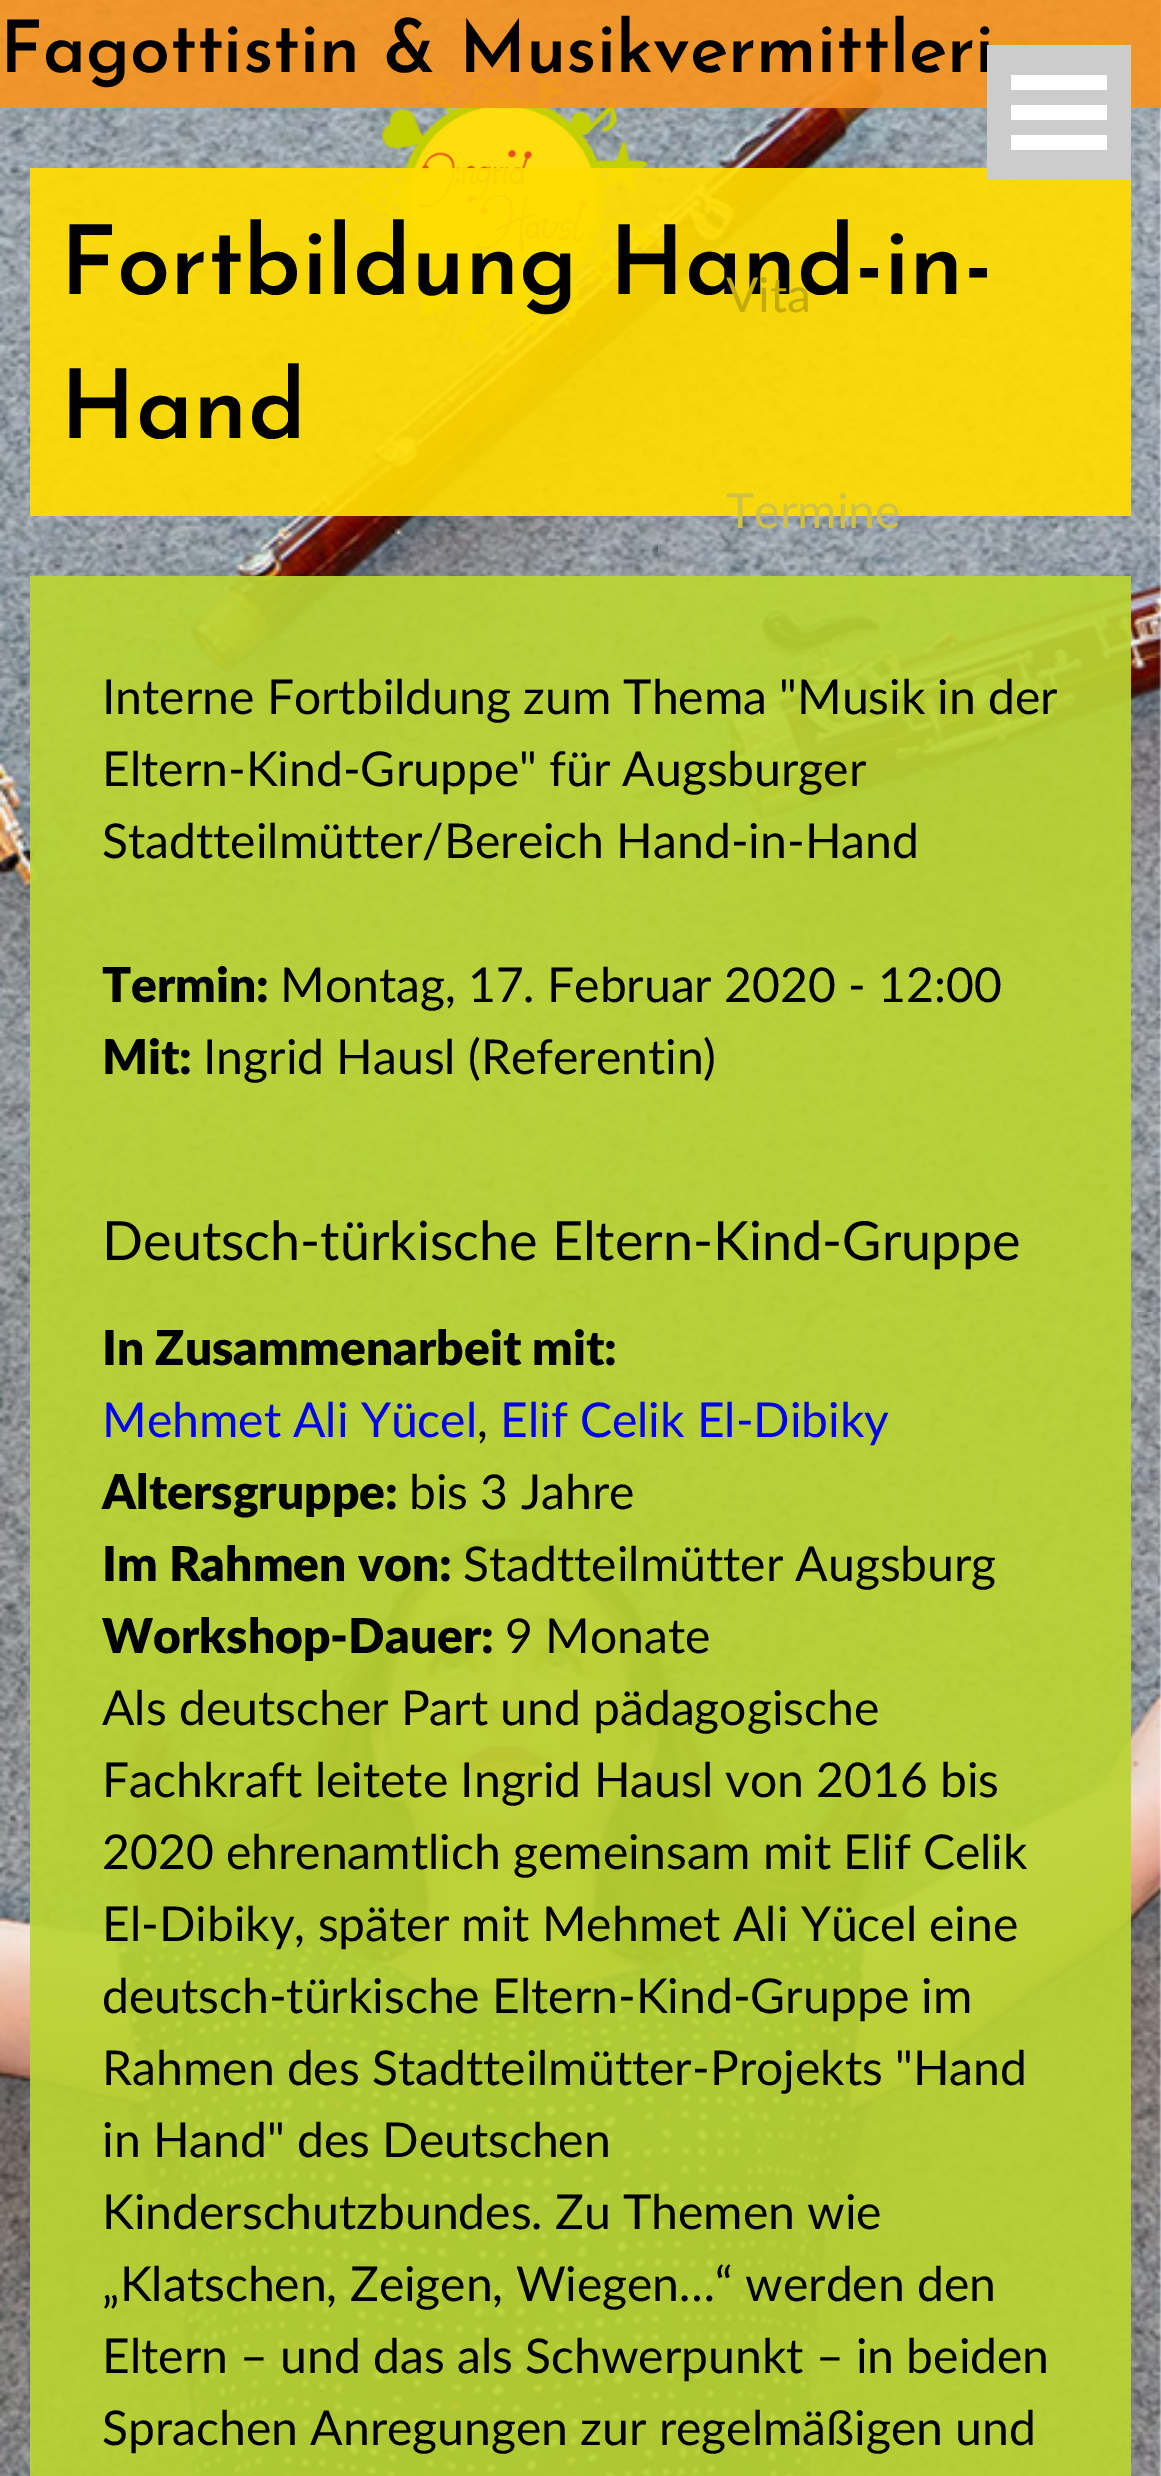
%!PS-Adobe-3.0
%%BoundingBox: 0 0 1161 2476
%%LanguageLevel: 3
%%Pages: 1
%%EndComments
%%BeginProlog
/fn { [ exch dup neg 0 0 3 -1 roll 0 0 ] selectfont } def
/tx { moveto show } def
/bx { rectfill } def
/al { dup .setfillconstantalpha .setstrokeconstantalpha } def
/im { 5 dict begin { /h /w /y /x /name } { exch def } forall
  gsave x y translate w h scale
  w h 8 [w 0 0 h 0 0] name (r) file false 3 colorimage grestore end } def
%%EndProlog
%%BeginSetup
<< /PageSize [1161 2476] /PageUsesTransparency true >> setpagedevice
%%EndSetup
%%Page: 1 1
0 .pushpdf14devicefilter
0 2476 translate 1 -1 scale
4 setmiterlimit
1 setgray
0 0 1161 2476 bx
(image0.raw) 0 0 1161 2476 im
(image1.raw) 360 74 291 269 im
0.9 al
0.969 0.58 0.118 setrgbcolor
0 0 1161 108 bx
/JosefinSans-SemiBold 72 fn
1 al
0 setgray
(Fagottistin & Musikvermittleri) 0 72 tx
0.92 al
1 0.867 0 setrgbcolor
30 168 1101 348 bx
1 al
0.8 setgray
987 45 144 135 bx
1 setgray
1011 135 96 15 bx
1011 105 96 15 bx
1011 75 96 15 bx
/JosefinSans-SemiBold 96 fn
0 setgray
(Fortbildung Hand-in-) 60 294 tx
/Lato-Regular 48 fn
0.765 0.671 0.035 setrgbcolor
(Vita) 726 312 tx
0.82 0.761 0.271 setrgbcolor
(Termine) 726 528 tx
/JosefinSans-SemiBold 96 fn
0 setgray
(Hand) 60 438 tx
0.92 al
0.729 0.835 0.196 setrgbcolor
30 576 1101 1900 bx
/Lato-Regular 48 fn
1 al
0 setgray
(Interne Fortbildung zum Thema "Musik in der) 102 714 tx
(Eltern-Kind-Gruppe" für Augsburger) 102 786 tx
(Stadtteilmütter/Bereich Hand-in-Hand) 102 858 tx
/Lato-Black 48 fn
(Termin:) 102 1002 tx
/Lato-Regular 48 fn
(Montag, 17. Februar 2020 - 12:00) 280 1002 tx
/Lato-Black 48 fn
(Mit:) 102 1074 tx
/Lato-Regular 48 fn
(Ingrid Hausl \(Referentin\)) 203 1074 tx
/Lato-Regular 54 fn
(Deutsch-türkische Eltern-Kind-Gruppe) 102 1260 tx
/Lato-Black 48 fn
(In Zusammenarbeit mit:) 102 1365 tx
/Lato-Regular 48 fn
0 0 0.933 setrgbcolor
(Mehmet Ali Yücel) 102 1437 tx
0 setgray
(,) 477 1437 tx
0 0 0.933 setrgbcolor
(Elif Celik El-Dibiky) 500 1437 tx
/Lato-Black 48 fn
0 setgray
(Altersgruppe:) 102 1509 tx
/Lato-Regular 48 fn
(bis 3 Jahre) 409 1509 tx
/Lato-Black 48 fn
(Im Rahmen von:) 102 1581 tx
/Lato-Regular 48 fn
(Stadtteilmütter Augsburg) 463 1581 tx
/Lato-Black 48 fn
(Workshop-Dauer:) 102 1653 tx
/Lato-Regular 48 fn
(9 Monate) 505 1653 tx
(Als deutscher Part und pädagogische) 102 1725 tx
(Fachkraft leitete Ingrid Hausl von 2016 bis) 102 1797 tx
(2020 ehrenamtlich gemeinsam mit Elif Celik) 102 1869 tx
(El-Dibiky, später mit Mehmet Ali Yücel eine) 102 1941 tx
(deutsch-türkische Eltern-Kind-Gruppe im) 102 2013 tx
(Rahmen des Stadtteilmütter-Projekts "Hand) 102 2085 tx
(in Hand" des Deutschen) 102 2157 tx
(Kinderschutzbundes. Zu Themen wie) 102 2229 tx
(„Klatschen, Zeigen, Wiegen…“ werden den) 102 2301 tx
(Eltern – und das als Schwerpunkt – in beiden) 102 2373 tx
(Sprachen Anregungen zur regelmäßigen und) 102 2445 tx
.poppdf14devicefilter showpage
%%EOF
